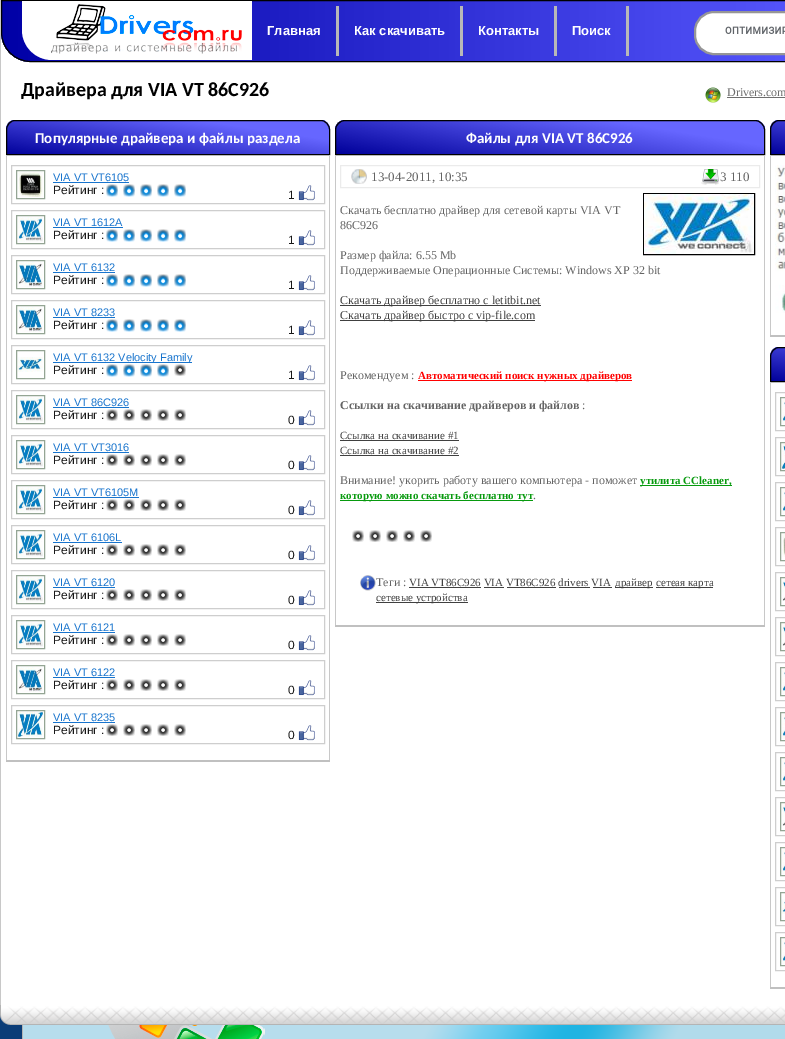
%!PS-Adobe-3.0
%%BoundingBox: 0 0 785 1039
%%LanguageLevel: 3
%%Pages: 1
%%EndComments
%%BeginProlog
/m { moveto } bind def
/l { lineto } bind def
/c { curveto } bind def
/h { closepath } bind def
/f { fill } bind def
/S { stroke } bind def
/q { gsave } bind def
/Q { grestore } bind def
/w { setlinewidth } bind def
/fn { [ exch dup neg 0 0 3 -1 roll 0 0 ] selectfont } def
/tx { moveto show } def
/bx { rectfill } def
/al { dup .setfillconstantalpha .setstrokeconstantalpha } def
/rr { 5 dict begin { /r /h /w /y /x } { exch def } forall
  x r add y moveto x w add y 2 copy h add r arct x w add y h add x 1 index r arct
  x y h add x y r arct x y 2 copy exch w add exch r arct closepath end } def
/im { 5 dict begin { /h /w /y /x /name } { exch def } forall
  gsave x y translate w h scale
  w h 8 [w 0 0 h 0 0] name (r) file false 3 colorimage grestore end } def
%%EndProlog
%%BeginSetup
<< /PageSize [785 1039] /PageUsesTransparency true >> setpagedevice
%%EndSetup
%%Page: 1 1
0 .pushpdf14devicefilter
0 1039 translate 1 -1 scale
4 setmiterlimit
0.039 0.235 0.467 setrgbcolor
0 0 785 1039 bx
1 setgray
1 32 784 973 bx
0.784 setgray
0 0 1 1005 bx
0 0 1 setrgbcolor
1 0 m 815 0 l 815 32 l 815 48.5 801.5 62 785 62 c 31 62 l 14.5 62 1 48.5 1 32 c h f
q
1 0 m 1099 0 l 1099 32 l 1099 48.5 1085.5 62 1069 62 c 31 62 l 14.5 62 1 48.5 1 32 c h clip newpath
0.35 al
q 2 1 m 785 1 l 785 62 l 2 62 l h clip newpath
<< /ShadingType 2 /ColorSpace /DeviceRGB /Coords [2 31 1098 31] /Extend [true true] /Function << /FunctionType 3 /Domain [0 1] /Functions [<< /FunctionType 2 /Domain [0 1] /C0 [0 0 0] /C1 [1 1 1] /N 1 >> << /FunctionType 2 /Domain [0 1] /C0 [1 1 1] /C1 [1 1 1] /N 1 >>] /Bounds [0.76] /Encode [0 1 0 1] >> >> shfill Q
Q
0 setgray
1.5 0.5 m 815.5 0.5 l 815.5 32 l 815.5 48.5 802.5 61.5 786 61.5 c 31 61.5 l 14.5 61.5 1.5 48.5 1.5 32 c h S
1 setgray
22 1 m 252 1 l 252 60 l 52 60 l 35.5 60 22 46.5 22 30 c h f
(image0.raw) 51 4 191 50 im
/LiberationSans-Bold 13 fn
(Главная) 267 35 tx
0.722 setgray
336 6 3 50 bx
1 setgray
(Как скачивать) 354 35 tx
0.722 setgray
460 6 3 50 bx
1 setgray
(Контакты) 478 35 tx
0.722 setgray
554 6 3 50 bx
1 setgray
(Поиск) 572 35 tx
0.722 setgray
626 6 3 50 bx
1 setgray
695 12 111 42 19 rr q f Q
0.588 setgray
2 w
S
(image1.raw) 725 26 60 8 im
/Carlito-Bold 20 fn
0 setgray
(Драйвера для VIA VT 86C926) 21 96 tx
(image2.raw) 705 87 16 16 im
/LiberationSerif-Regular 12 fn
0.431 setgray
(Drivers.com) 727 96 tx
727 97 58 1 bx
0 0 1 setrgbcolor
15 120 m 321 120 l 326 120 330 124 330 130 c 330 155 l 6 155 l 6 130 l 6 124 10 120 15 120 c h f
0.4 al
q 7 125 m 8 123 9 122 11 121 c 325 121 l 327 122 328 123 329 125 c 329 154 l 7 154 l h clip newpath
<< /ShadingType 2 /ColorSpace /DeviceRGB /Coords [162 178 174 97] /Extend [true true] /Function << /FunctionType 3 /Domain [0 1] /Functions [<< /FunctionType 2 /Domain [0 1] /C0 [0 0 0] /C1 [1 1 1] /N 1 >> << /FunctionType 2 /Domain [0 1] /C0 [1 1 1] /C1 [1 1 1] /N 1 >>] /Bounds [0.76] /Encode [0 1 0 1] >> >> shfill Q
1 al
0 setgray
1 w
15 120.5 m 321 120.5 l 325.5 120.5 329.5 125 329.5 130 c 329.5 154.5 l 6.5 154.5 l 6.5 130 l 6.5 125 10.5 120.5 15 120.5 c h S
/Carlito-Bold 15 fn
1 setgray
(Популярные драйвера и файлы раздела) 35 143 tx
0.784 setgray
329 155 1 605 bx
6 155 1 605 bx
0.808 setgray
11.5 165.5 313 38 rectstroke
0.58 0.647 0.58 setrgbcolor
16.5 170.5 28 28 rectstroke
(image3.raw) 18 172 25 25 im
/LiberationSans-Regular 11 fn
0.094 0.455 0.804 setrgbcolor
(VIA VT VT6105) 53 181 tx
53 182 76 1 bx
/LiberationSans-Regular 12 fn
0.094 setgray
(Рейтинг :) 53 194 tx
(image4.raw) 106 184 80 12 im
(image5.raw) 106 185 80 12 im
(1) 288 199 tx
(image6.raw) 298 185 17 16 im
0.808 setgray
11.5 210.5 313 38 rectstroke
0.58 0.647 0.58 setrgbcolor
16.5 215.5 28 28 rectstroke
(image7.raw) 18 217 25 25 im
/LiberationSans-Regular 11 fn
0.094 0.455 0.804 setrgbcolor
(VIA VT 1612A) 53 226 tx
53 227 70 1 bx
/LiberationSans-Regular 12 fn
0.094 setgray
(Рейтинг :) 53 239 tx
(image4.raw) 106 229 80 12 im
(image5.raw) 106 230 80 12 im
(1) 288 244 tx
(image6.raw) 298 230 17 16 im
0.808 setgray
11.5 255.5 313 38 rectstroke
0.58 0.647 0.58 setrgbcolor
16.5 260.5 28 28 rectstroke
(image8.raw) 18 262 25 25 im
/LiberationSans-Regular 11 fn
0.094 0.455 0.804 setrgbcolor
(VIA VT 6132) 53 271 tx
53 272 62 1 bx
/LiberationSans-Regular 12 fn
0.094 setgray
(Рейтинг :) 53 284 tx
(image4.raw) 106 274 80 12 im
(image5.raw) 106 275 80 12 im
(1) 288 289 tx
(image6.raw) 298 275 17 16 im
0.808 setgray
11.5 300.5 313 38 rectstroke
0.58 0.647 0.58 setrgbcolor
16.5 305.5 28 28 rectstroke
(image8.raw) 18 307 25 25 im
/LiberationSans-Regular 11 fn
0.094 0.455 0.804 setrgbcolor
(VIA VT 8233) 53 316 tx
53 317 62 1 bx
/LiberationSans-Regular 12 fn
0.094 setgray
(Рейтинг :) 53 329 tx
(image4.raw) 106 319 80 12 im
(image5.raw) 106 320 80 12 im
(1) 288 334 tx
(image6.raw) 298 320 17 16 im
0.808 setgray
11.5 345.5 313 38 rectstroke
0.58 0.647 0.58 setrgbcolor
16.5 350.5 28 28 rectstroke
(image9.raw) 18 357 25 15 im
0.094 0.455 0.804 setrgbcolor
53 362 139 1 bx
q
53 351 270 12 rectclip
/LiberationSans-Regular 11 fn
(VIA VT 6132 Velocity Family) 53 361 tx
Q
0.094 setgray
(Рейтинг :) 53 374 tx
(image4.raw) 106 364 80 12 im
(image10.raw) 106 365 63 12 im
(1) 288 379 tx
(image6.raw) 298 365 17 16 im
0.808 setgray
11.5 390.5 313 38 rectstroke
0.58 0.647 0.58 setrgbcolor
16.5 395.5 28 28 rectstroke
(image7.raw) 18 397 25 25 im
/LiberationSans-Regular 11 fn
0.094 0.455 0.804 setrgbcolor
(VIA VT 86C926) 53 406 tx
53 407 76 1 bx
/LiberationSans-Regular 12 fn
0.094 setgray
(Рейтинг :) 53 419 tx
(image4.raw) 106 409 80 12 im
(0) 288 424 tx
(image6.raw) 298 410 17 16 im
0.808 setgray
11.5 435.5 313 38 rectstroke
0.58 0.647 0.58 setrgbcolor
16.5 440.5 28 28 rectstroke
(image7.raw) 18 442 25 25 im
/LiberationSans-Regular 11 fn
0.094 0.455 0.804 setrgbcolor
(VIA VT VT3016) 53 451 tx
53 452 76 1 bx
/LiberationSans-Regular 12 fn
0.094 setgray
(Рейтинг :) 53 464 tx
(image4.raw) 106 454 80 12 im
(0) 288 469 tx
(image6.raw) 298 455 17 16 im
0.808 setgray
11.5 480.5 313 38 rectstroke
0.58 0.647 0.58 setrgbcolor
16.5 485.5 28 28 rectstroke
(image7.raw) 18 487 25 25 im
/LiberationSans-Regular 11 fn
0.094 0.455 0.804 setrgbcolor
(VIA VT VT6105M) 53 496 tx
53 497 86 1 bx
/LiberationSans-Regular 12 fn
0.094 setgray
(Рейтинг :) 53 509 tx
(image4.raw) 106 499 80 12 im
(0) 288 514 tx
(image6.raw) 298 500 17 16 im
0.808 setgray
11.5 525.5 313 38 rectstroke
0.58 0.647 0.58 setrgbcolor
16.5 530.5 28 28 rectstroke
(image7.raw) 18 532 25 25 im
/LiberationSans-Regular 11 fn
0.094 0.455 0.804 setrgbcolor
(VIA VT 6106L) 53 541 tx
53 542 69 1 bx
/LiberationSans-Regular 12 fn
0.094 setgray
(Рейтинг :) 53 554 tx
(image4.raw) 106 544 80 12 im
(0) 288 559 tx
(image6.raw) 298 545 17 16 im
0.808 setgray
11.5 570.5 313 38 rectstroke
0.58 0.647 0.58 setrgbcolor
16.5 575.5 28 28 rectstroke
(image7.raw) 18 577 25 25 im
/LiberationSans-Regular 11 fn
0.094 0.455 0.804 setrgbcolor
(VIA VT 6120) 53 586 tx
53 587 62 1 bx
/LiberationSans-Regular 12 fn
0.094 setgray
(Рейтинг :) 53 599 tx
(image4.raw) 106 589 80 12 im
(0) 288 604 tx
(image6.raw) 298 590 17 16 im
0.808 setgray
11.5 615.5 313 38 rectstroke
0.58 0.647 0.58 setrgbcolor
16.5 620.5 28 28 rectstroke
(image7.raw) 18 622 25 25 im
/LiberationSans-Regular 11 fn
0.094 0.455 0.804 setrgbcolor
(VIA VT 6121) 53 631 tx
53 632 62 1 bx
/LiberationSans-Regular 12 fn
0.094 setgray
(Рейтинг :) 53 644 tx
(image4.raw) 106 634 80 12 im
(0) 288 649 tx
(image6.raw) 298 635 17 16 im
0.808 setgray
11.5 660.5 313 38 rectstroke
0.58 0.647 0.58 setrgbcolor
16.5 665.5 28 28 rectstroke
(image8.raw) 18 667 25 25 im
/LiberationSans-Regular 11 fn
0.094 0.455 0.804 setrgbcolor
(VIA VT 6122) 53 676 tx
53 677 62 1 bx
/LiberationSans-Regular 12 fn
0.094 setgray
(Рейтинг :) 53 689 tx
(image4.raw) 106 679 80 12 im
(0) 288 694 tx
(image6.raw) 298 680 17 16 im
0.808 setgray
11.5 705.5 313 38 rectstroke
0.58 0.647 0.58 setrgbcolor
16.5 710.5 28 28 rectstroke
(image11.raw) 18 712 25 25 im
/LiberationSans-Regular 11 fn
0.094 0.455 0.804 setrgbcolor
(VIA VT 8235) 53 721 tx
53 722 62 1 bx
/LiberationSans-Regular 12 fn
0.094 setgray
(Рейтинг :) 53 734 tx
(image4.raw) 106 724 80 12 im
(0) 288 739 tx
(image6.raw) 298 725 17 16 im
0.753 setgray
6 760 324 2 bx
0 0 1 setrgbcolor
345 120 m 755 120 l 760.5 120 765 124.5 765 130 c 765 155 l 335 155 l 335 130 l 335 124.5 339.5 120 345 120 c h f
q
345 120 m 755 120 l 760.5 120 765 124.5 765 130 c 765 155 l 335 155 l 335 130 l 335 124.5 339.5 120 345 120 c h clip newpath
0.4 al
q 336 121 m 764 121 l 764 154 l 336 154 l h clip newpath
<< /ShadingType 2 /ColorSpace /DeviceRGB /Coords [542 187 558 88] /Extend [true true] /Function << /FunctionType 3 /Domain [0 1] /Functions [<< /FunctionType 2 /Domain [0 1] /C0 [0 0 0] /C1 [1 1 1] /N 1 >> << /FunctionType 2 /Domain [0 1] /C0 [1 1 1] /C1 [1 1 1] /N 1 >>] /Bounds [0.76] /Encode [0 1 0 1] >> >> shfill Q
Q
0 setgray
345 120.5 m 755 120.5 l 760 120.5 764.5 125 764.5 130 c 764.5 154.5 l 335.5 154.5 l 335.5 130 l 335.5 125 340 120.5 345 120.5 c h S
/Carlito-Bold 15 fn
1 setgray
(Файлы для VIA VT 86C926) 466 143 tx
0.784 setgray
764 155 1 470 bx
335 155 1 470 bx
0.922 setgray
340.5 165.5 419 22 rectstroke
(image12.raw) 351 169 16 15 im
/LiberationSerif-Regular 13 fn
0.392 setgray
(13-04-2011, 10:35) 371 181 tx
(image13.raw) 701 169 18 16 im
(3 110) 720 181 tx
/LiberationSerif-Regular 12 fn
(Скачать бесплатно драйвер для сетевой карты VIA VT) 340 214 tx
0 setgray
643.5 193.5 111 61 rectstroke
(image14.raw) 644 194 110 60 im
0.392 setgray
(86C926) 340 229 tx
(Размер файла: 6.55 Mb) 340 259 tx
(Поддерживаемые Операционные Системы: Windows XP 32 bit) 340 274 tx
0.251 setgray
340 305 201 1 bx
(Скачать драйвер бесплатно с letitbit.net) 340 304 tx
340 320 195 1 bx
(Скачать драйвер быстро с vip-file.com) 340 319 tx
0.392 setgray
(Рекомендуем :) 340 379 tx
1 0.004 0.004 setrgbcolor
418 380 214 1 bx
/LiberationSerif-Bold 11 fn
(Автоматический поиск нужных драйверов) 418 379 tx
/LiberationSerif-Bold 12 fn
0.392 setgray
(Ссылки на скачивание драйверов и файлов) 340 409 tx
/LiberationSerif-Regular 12 fn
(:) 582 409 tx
/LiberationSerif-Regular 11 fn
0.251 setgray
(Ссылка на скачивание #1) 340 439 tx
340 440 119 1 bx
(Ссылка на скачивание #2) 340 454 tx
340 455 119 1 bx
/LiberationSerif-Regular 12 fn
0.392 setgray
(Внимание! укорить работу вашего компьютера - поможет) 340 484 tx
0.027 0.604 0.055 setrgbcolor
640 485 92 1 bx
/LiberationSerif-Bold 11 fn
(утилита CCleaner,) 640 484 tx
340 500 193 1 bx
(которую можно скачать бесплатно тут) 340 499 tx
/LiberationSerif-Regular 12 fn
0.392 setgray
(.) 533 499 tx
(image4.raw) 352 530 80 12 im
(image15.raw) 360 575 16 16 im
(Теги :) 376 586 tx
/LiberationSerif-Regular 11 fn
0.251 setgray
(VIA VT86C926 VIA VT86C926 drivers VIA) 409 586 tx
409 587 72 1 bx
484 587 20 1 bx
507 587 49 1 bx
559 587 31 1 bx
593 587 19 1 bx
615 587 38 1 bx
(драйвер) 615 586 tx
656 587 57 1 bx
(сетеая карта) 656 586 tx
376 602 92 1 bx
(сетевые устройства) 376 601 tx
0.753 setgray
335 625 430 2 bx
0 0 1 setrgbcolor
779 120 m 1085 120 l 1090 120 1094 124 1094 130 c 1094 155 l 770 155 l 770 130 l 770 124 774 120 779 120 c h f
0.4 al
q 771 125 m 772 123 773 122 775 121 c 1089 121 l 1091 122 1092 123 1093 125 c 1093 154 l 771 154 l h clip newpath
<< /ShadingType 2 /ColorSpace /DeviceRGB /Coords [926 178 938 97] /Extend [true true] /Function << /FunctionType 3 /Domain [0 1] /Functions [<< /FunctionType 2 /Domain [0 1] /C0 [0 0 0] /C1 [1 1 1] /N 1 >> << /FunctionType 2 /Domain [0 1] /C0 [1 1 1] /C1 [1 1 1] /N 1 >>] /Bounds [0.76] /Encode [0 1 0 1] >> >> shfill Q
1 al
0 setgray
779 120.5 m 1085 120.5 l 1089.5 120.5 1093.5 125 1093.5 130 c 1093.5 154.5 l 770.5 154.5 l 770.5 130 l 770.5 125 774.5 120.5 779 120.5 c h S
0.784 setgray
770 155 1 180 bx
(image16.raw) 775 165 10 148 im
0.753 setgray
770 335 15 2 bx
0 0 1 setrgbcolor
779 347 m 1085 347 l 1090 347 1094 351 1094 357 c 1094 382 l 770 382 l 770 357 l 770 351 774 347 779 347 c h f
0.4 al
q 771 352 m 772 350 773 349 775 348 c 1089 348 l 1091 349 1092 350 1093 352 c 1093 381 l 771 381 l h clip newpath
<< /ShadingType 2 /ColorSpace /DeviceRGB /Coords [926 405 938 324] /Extend [true true] /Function << /FunctionType 3 /Domain [0 1] /Functions [<< /FunctionType 2 /Domain [0 1] /C0 [0 0 0] /C1 [1 1 1] /N 1 >> << /FunctionType 2 /Domain [0 1] /C0 [1 1 1] /C1 [1 1 1] /N 1 >>] /Bounds [0.76] /Encode [0 1 0 1] >> >> shfill Q
1 al
0 setgray
779 347.5 m 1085 347.5 l 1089.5 347.5 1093.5 352 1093.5 357 c 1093.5 381.5 l 770.5 381.5 l 770.5 357 l 770.5 352 774.5 347.5 779 347.5 c h S
0.784 setgray
770 382 1 605 bx
0.808 setgray
775.5 392.5 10 38 rectstroke
0.58 0.647 0.58 setrgbcolor
780.5 397.5 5 28 rectstroke
(image17.raw) 782 399 3 25 im
0.808 setgray
775.5 437.5 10 38 rectstroke
0.58 0.647 0.58 setrgbcolor
780.5 442.5 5 28 rectstroke
(image18.raw) 782 444 3 25 im
0.808 setgray
775.5 482.5 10 38 rectstroke
0.58 0.647 0.58 setrgbcolor
780.5 487.5 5 28 rectstroke
(image17.raw) 782 489 3 25 im
0.808 setgray
775.5 527.5 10 38 rectstroke
0.58 0.647 0.58 setrgbcolor
780.5 532.5 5 28 rectstroke
(image19.raw) 782 534 3 23 im
0.808 setgray
775.5 572.5 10 38 rectstroke
0.58 0.647 0.58 setrgbcolor
780.5 577.5 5 28 rectstroke
(image20.raw) 782 579 3 22 im
0.808 setgray
775.5 617.5 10 38 rectstroke
0.58 0.647 0.58 setrgbcolor
780.5 622.5 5 28 rectstroke
(image20.raw) 782 624 3 22 im
0.808 setgray
775.5 662.5 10 38 rectstroke
0.58 0.647 0.58 setrgbcolor
780.5 667.5 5 28 rectstroke
(image17.raw) 782 669 3 25 im
0.808 setgray
775.5 707.5 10 38 rectstroke
0.58 0.647 0.58 setrgbcolor
780.5 712.5 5 28 rectstroke
(image17.raw) 782 714 3 25 im
0.808 setgray
775.5 752.5 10 38 rectstroke
0.58 0.647 0.58 setrgbcolor
780.5 757.5 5 28 rectstroke
(image17.raw) 782 759 3 25 im
0.808 setgray
775.5 797.5 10 38 rectstroke
0.58 0.647 0.58 setrgbcolor
780.5 802.5 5 28 rectstroke
(image20.raw) 782 804 3 22 im
0.808 setgray
775.5 842.5 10 38 rectstroke
0.58 0.647 0.58 setrgbcolor
780.5 847.5 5 28 rectstroke
(image17.raw) 782 849 3 25 im
0.808 setgray
775.5 887.5 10 38 rectstroke
0.58 0.647 0.58 setrgbcolor
780.5 892.5 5 28 rectstroke
(image21.raw) 782 899 3 15 im
0.808 setgray
775.5 932.5 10 38 rectstroke
0.58 0.647 0.58 setrgbcolor
780.5 937.5 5 28 rectstroke
(image17.raw) 782 939 3 25 im
0.753 setgray
770 987 15 2 bx
(image22.raw) 0 1005 785 34 im
.poppdf14devicefilter showpage
%%EOF
